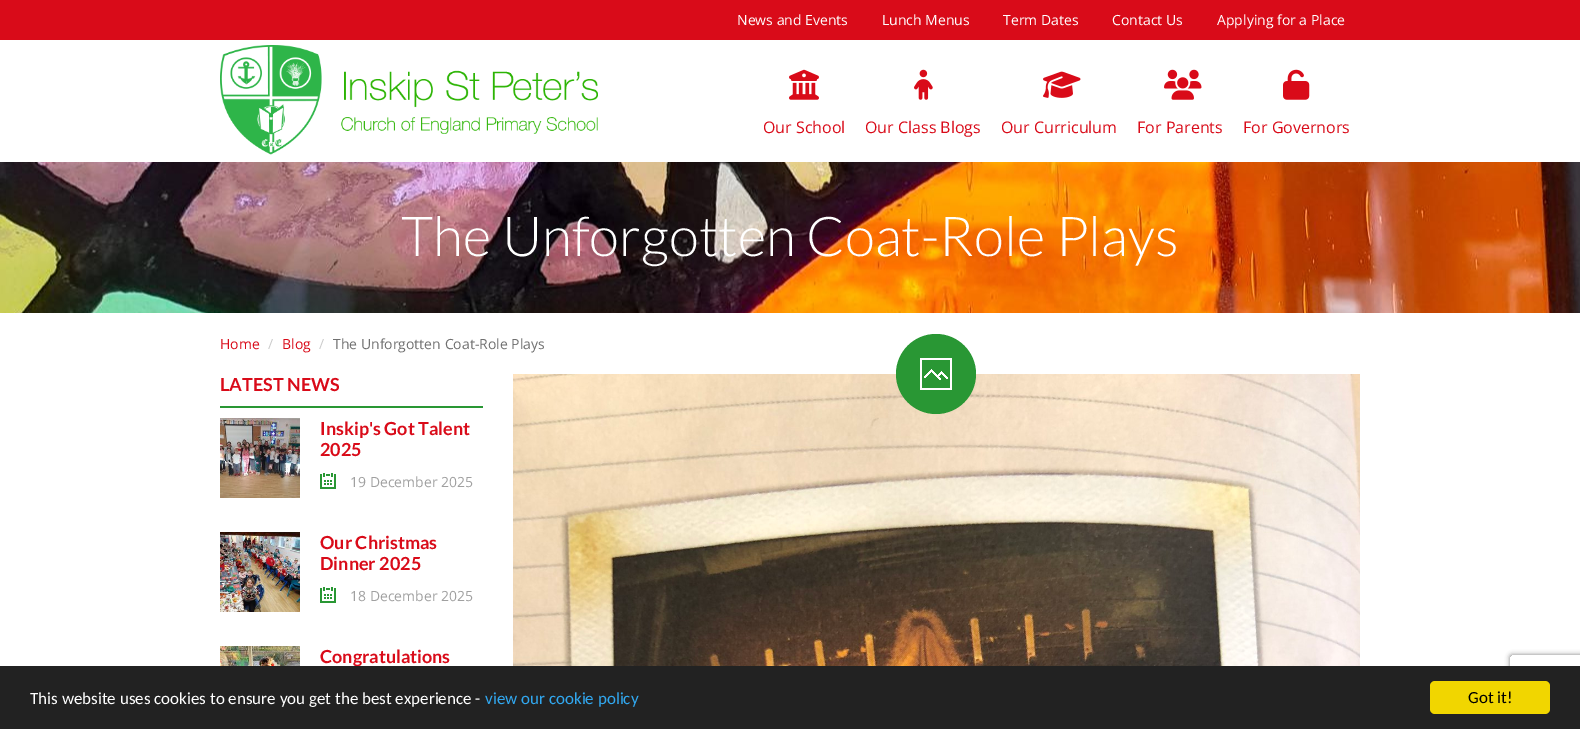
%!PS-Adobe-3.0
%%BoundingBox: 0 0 1580 729
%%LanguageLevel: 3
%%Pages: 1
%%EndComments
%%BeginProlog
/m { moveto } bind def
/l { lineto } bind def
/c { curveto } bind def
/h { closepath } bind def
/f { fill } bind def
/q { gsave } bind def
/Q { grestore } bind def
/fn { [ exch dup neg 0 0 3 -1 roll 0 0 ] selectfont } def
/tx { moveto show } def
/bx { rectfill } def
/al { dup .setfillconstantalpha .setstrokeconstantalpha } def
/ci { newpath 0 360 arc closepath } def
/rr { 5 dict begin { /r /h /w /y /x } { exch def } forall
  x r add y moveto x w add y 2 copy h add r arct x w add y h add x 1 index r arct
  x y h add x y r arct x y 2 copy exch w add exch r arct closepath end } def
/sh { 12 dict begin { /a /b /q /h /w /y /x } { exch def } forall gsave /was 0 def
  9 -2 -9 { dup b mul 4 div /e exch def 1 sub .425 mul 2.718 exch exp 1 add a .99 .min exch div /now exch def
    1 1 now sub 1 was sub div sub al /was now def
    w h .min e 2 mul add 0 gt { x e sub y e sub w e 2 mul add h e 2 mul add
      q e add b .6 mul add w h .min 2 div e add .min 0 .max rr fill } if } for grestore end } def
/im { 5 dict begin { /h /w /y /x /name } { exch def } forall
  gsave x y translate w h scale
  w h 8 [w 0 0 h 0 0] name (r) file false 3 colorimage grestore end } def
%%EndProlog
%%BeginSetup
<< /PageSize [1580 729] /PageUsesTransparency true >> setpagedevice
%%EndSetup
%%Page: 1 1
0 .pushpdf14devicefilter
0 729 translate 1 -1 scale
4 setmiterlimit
1 setgray
0 0 1580 729 bx
(image0.raw) 220 45 378 110 im
0.851 0.043 0.098 setrgbcolor
0 0 1580 40 bx
/OpenSans-Regular 14 fn
1 setgray
(News and Events) 737 25 tx
(Lunch Menus) 882 25 tx
(Term Dates) 1003 25 tx
(Contact Us) 1112 25 tx
(Applying for a Place) 1217 25 tx
(image1.raw) 789 69 30 31 im
/OpenSans-Regular 16 fn
0.851 0.043 0.098 setrgbcolor
(Our School) 763 133 tx
(image2.raw) 914 69 19 31 im
(Our Class Blogs) 865 133 tx
(image3.raw) 1043 71 38 27 im
(Our Curriculum) 1001 133 tx
(image4.raw) 1164 69 38 31 im
(For Parents) 1137 133 tx
(image5.raw) 1283 69 27 31 im
(For Governors) 1243 133 tx
(image6.raw) 0 162 1580 151 im
/Lato-Light 55 fn
1 setgray
(The Unforgotten Coat-Role Plays) 401 256 tx
/OpenSans-Regular 14 fn
0.851 0.043 0.098 setrgbcolor
(Home) 220 349 tx
0.8 setgray
(/) 268 349 tx
0.851 0.043 0.098 setrgbcolor
(Blog) 282 349 tx
0.8 setgray
(/) 319 349 tx
0.439 setgray
(The Unforgotten Coat-Role Plays) 333 349 tx
/Lato-Bold 18 fn
0.851 0.043 0.098 setrgbcolor
(LATEST NEWS) 220 391 tx
0.161 0.592 0.204 setrgbcolor
220 406 263 2 bx
(image7.raw) 220 418 80 80 im
0.851 0.043 0.098 setrgbcolor
(Inskip's Got Talent) 320 435 tx
(2025) 320 456 tx
0.161 0.592 0.204 setrgbcolor
320 473 16 16 bx
(image8.raw) 320 473 16 14 im
/OpenSans-Regular 14 fn
0.627 setgray
(19 December 2025) 350 487 tx
(image9.raw) 220 532 80 80 im
/Lato-Bold 18 fn
0.851 0.043 0.098 setrgbcolor
(Our Christmas) 320 549 tx
(Dinner 2025) 320 570 tx
0.161 0.592 0.204 setrgbcolor
320 587 16 16 bx
(image8.raw) 320 587 16 14 im
/OpenSans-Regular 14 fn
0.627 setgray
(18 December 2025) 350 601 tx
(image10.raw) 220 646 80 20 im
/Lato-Bold 18 fn
0.851 0.043 0.098 setrgbcolor
(Congratulations) 320 663 tx
(image12.raw) 513 374 847 292 im
0.161 0.592 0.204 setrgbcolor
936 374 40 ci f
(image11.raw) 920 358 32 32 im
q
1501 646 m 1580 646 l 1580 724 l 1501 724 l h 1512 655 m 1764 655 l 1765 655 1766 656 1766 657 c 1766 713 l 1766 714 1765 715 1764 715 c 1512 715 l 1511 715 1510 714 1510 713 c 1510 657 l 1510 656 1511 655 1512 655 c h eoclip newpath
0.502 setgray
1510 655 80 60 2 2.5 1 sh
Q
0.133 setgray
0 666 1580 63 bx
/Carlito-Regular 17 fn
1 setgray
(This website uses cookies to ensure you get the best experience -) 30 704 tx
0.192 0.659 0.941 setrgbcolor
(view our cookie policy) 485 704 tx
0.945 0.839 0 setrgbcolor
1430 681 120 33 5 rr f
0 setgray
(Got it!) 1468 703 tx
.poppdf14devicefilter showpage
%%EOF
